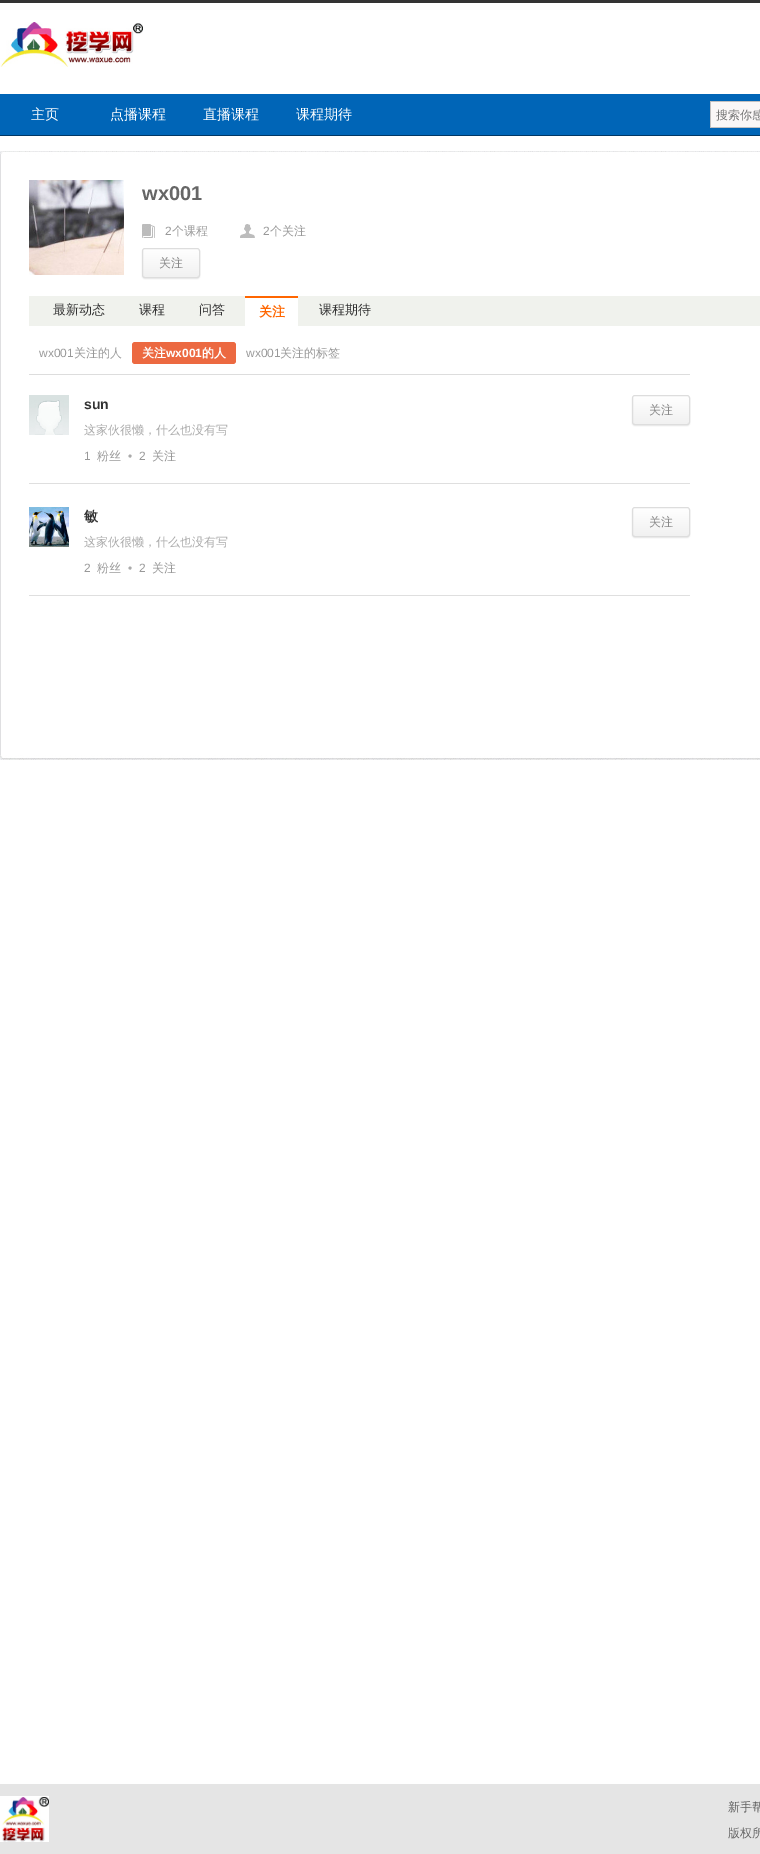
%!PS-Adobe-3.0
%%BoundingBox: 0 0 760 1854
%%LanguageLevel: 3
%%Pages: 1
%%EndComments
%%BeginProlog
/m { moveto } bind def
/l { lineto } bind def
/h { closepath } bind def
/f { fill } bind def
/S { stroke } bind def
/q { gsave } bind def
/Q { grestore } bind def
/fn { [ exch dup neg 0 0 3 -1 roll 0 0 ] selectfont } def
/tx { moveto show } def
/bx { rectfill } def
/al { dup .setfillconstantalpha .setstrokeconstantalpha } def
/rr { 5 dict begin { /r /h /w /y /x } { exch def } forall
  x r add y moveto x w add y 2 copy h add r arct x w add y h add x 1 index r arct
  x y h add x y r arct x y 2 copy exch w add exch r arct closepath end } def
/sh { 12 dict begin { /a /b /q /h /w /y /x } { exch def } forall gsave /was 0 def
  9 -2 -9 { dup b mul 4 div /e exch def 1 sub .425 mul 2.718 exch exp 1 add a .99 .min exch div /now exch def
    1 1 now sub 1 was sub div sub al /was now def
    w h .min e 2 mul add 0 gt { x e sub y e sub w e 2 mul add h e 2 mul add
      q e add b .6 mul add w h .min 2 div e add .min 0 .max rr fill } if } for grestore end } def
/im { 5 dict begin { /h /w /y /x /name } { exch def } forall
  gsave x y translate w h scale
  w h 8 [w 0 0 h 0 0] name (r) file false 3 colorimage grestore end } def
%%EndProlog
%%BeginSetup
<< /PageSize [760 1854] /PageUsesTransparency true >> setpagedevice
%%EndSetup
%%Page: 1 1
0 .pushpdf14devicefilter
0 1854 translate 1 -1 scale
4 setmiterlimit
1 setgray
0 0 760 1854 bx
0.2 setgray
0 0 760 3 bx
0.004 0.216 0.396 setrgbcolor
0 135 760 1 bx
0 0.396 0.718 setrgbcolor
0 94 760 41 bx
(image0.raw) 0 22 143 45 im
/WenQuanYiZenHei-Medium 14 fn
1 setgray
(主页) 31 119 tx
(点播课程) 110 119 tx
(直播课程) 203 119 tx
(课程期待) 296 119 tx
0.98 0.969 0.969 setrgbcolor
711 102 49 25 bx
0.761 0.753 0.753 setrgbcolor
710 101 50 1 bx
710 127 50 1 bx
710 101 1 27 bx
/WenQuanYiZenHei-Medium 12 fn
0.459 setgray
(搜索你感) 716 119 tx
(image1.raw) 0 151 760 4 im
0.875 0.875 0.882 setrgbcolor
0 155 1 600 bx
(image2.raw) 29 180 95 95 im
/LiberationSans-Bold 20 fn
0.4 setgray
(wx001) 142 200 tx
(image3.raw) 142 224 13 14 im
/LiberationSans-Regular 12 fn
0.6 setgray
(2) 165 235 tx
/WenQuanYiZenHei-Medium 12 fn
(个课程) 172 235 tx
(image4.raw) 240 224 15 14 im
/LiberationSans-Regular 12 fn
(2) 263 235 tx
/WenQuanYiZenHei-Medium 12 fn
(个关注) 270 235 tx
0 setgray
142 249 58 30 3 0.5 0.08 sh
q
142 248 58 30 3 rr clip newpath
q 142 249 m 200 249 l 200 277 l 142 277 l h clip newpath
<< /ShadingType 2 /ColorSpace /DeviceRGB /Coords [143 249 143 277] /Extend [true true] /Function << /FunctionType 2 /Domain [0 1] /C0 [1 1 1] /C1 [0.945 0.945 0.945] /N 1 >> >> shfill Q
Q
0.867 setgray
142.5 248.5 57 29 2.5 rr S
0.533 setgray
(关注) 159 267 tx
0.941 0.949 0.929 setrgbcolor
29 296 731 30 bx
/WenQuanYiZenHei-Medium 13 fn
0.2 setgray
(最新动态) 53 314 tx
(课程) 139 314 tx
(问答) 199 314 tx
1 setgray
245 298 53 28 bx
1 0.4 0 setrgbcolor
245 296 53 2 bx
/WenQuanYiZenHei-Bold 13 fn
(关注) 259 316 tx
/WenQuanYiZenHei-Medium 13 fn
0.2 setgray
(课程期待) 319 314 tx
0.867 setgray
29 374 661 1 bx
/LiberationSans-Regular 12 fn
0.6 setgray
(wx001) 39 357 tx
/WenQuanYiZenHei-Medium 12 fn
(关注的人) 74 357 tx
0.925 0.412 0.255 setrgbcolor
132 342 104 22 3 rr f
/WenQuanYiZenHei-Bold 12 fn
1 setgray
(关注) 142 357 tx
/LiberationSans-Bold 12 fn
(wx001) 166 357 tx
/WenQuanYiZenHei-Bold 12 fn
(的人) 202 357 tx
/LiberationSans-Regular 12 fn
0.6 setgray
(wx001) 246 357 tx
/WenQuanYiZenHei-Medium 12 fn
(关注的标签) 280 357 tx
0.875 setgray
29 483 661 1 bx
(image5.raw) 29 395 40 40 im
/LiberationSans-Bold 14 fn
0.2 setgray
(sun) 84 409 tx
/WenQuanYiZenHei-Medium 12 fn
0.667 setgray
(这家伙很懒，什么也没有写) 84 434 tx
/LiberationSans-Regular 12 fn
0.6 setgray
(1) 84 460 tx
/WenQuanYiZenHei-Medium 12 fn
(粉丝) 97 460 tx
/LiberationSans-Regular 12 fn
0.667 setgray
(•) 128 460 tx
0.6 setgray
(2) 139 460 tx
/WenQuanYiZenHei-Medium 12 fn
(关注) 152 460 tx
0 setgray
632 396 58 30 3 0.5 0.08 sh
q
632 395 58 30 3 rr clip newpath
q 632 396 m 690 396 l 690 424 l 632 424 l h clip newpath
<< /ShadingType 2 /ColorSpace /DeviceRGB /Coords [633 396 633 424] /Extend [true true] /Function << /FunctionType 2 /Domain [0 1] /C0 [1 1 1] /C1 [0.945 0.945 0.945] /N 1 >> >> shfill Q
Q
0.867 setgray
632.5 395.5 57 29 2.5 rr S
0.533 setgray
(关注) 649 414 tx
0.875 setgray
29 595 661 1 bx
(image6.raw) 29 507 40 40 im
/WenQuanYiZenHei-Bold 14 fn
0.2 setgray
(敏) 84 521 tx
/WenQuanYiZenHei-Medium 12 fn
0.667 setgray
(这家伙很懒，什么也没有写) 84 546 tx
/LiberationSans-Regular 12 fn
0.6 setgray
(2) 84 572 tx
/WenQuanYiZenHei-Medium 12 fn
(粉丝) 97 572 tx
/LiberationSans-Regular 12 fn
0.667 setgray
(•) 128 572 tx
0.6 setgray
(2) 139 572 tx
/WenQuanYiZenHei-Medium 12 fn
(关注) 152 572 tx
0 setgray
632 508 58 30 3 0.5 0.08 sh
q
632 507 58 30 3 rr clip newpath
q 632 508 m 690 508 l 690 536 l 632 536 l h clip newpath
<< /ShadingType 2 /ColorSpace /DeviceRGB /Coords [633 508 633 536] /Extend [true true] /Function << /FunctionType 2 /Domain [0 1] /C0 [1 1 1] /C1 [0.945 0.945 0.945] /N 1 >> >> shfill Q
Q
0.867 setgray
632.5 507.5 57 29 2.5 rr S
0.533 setgray
(关注) 649 526 tx
(image7.raw) 0 755 760 5 im
0.898 setgray
0 1784 760 70 bx
(image8.raw) 0 1796 49 46 im
0.365 setgray
(新手帮) 728 1811 tx
0.4 setgray
(版权所) 728 1837 tx
.poppdf14devicefilter showpage
%%EOF
